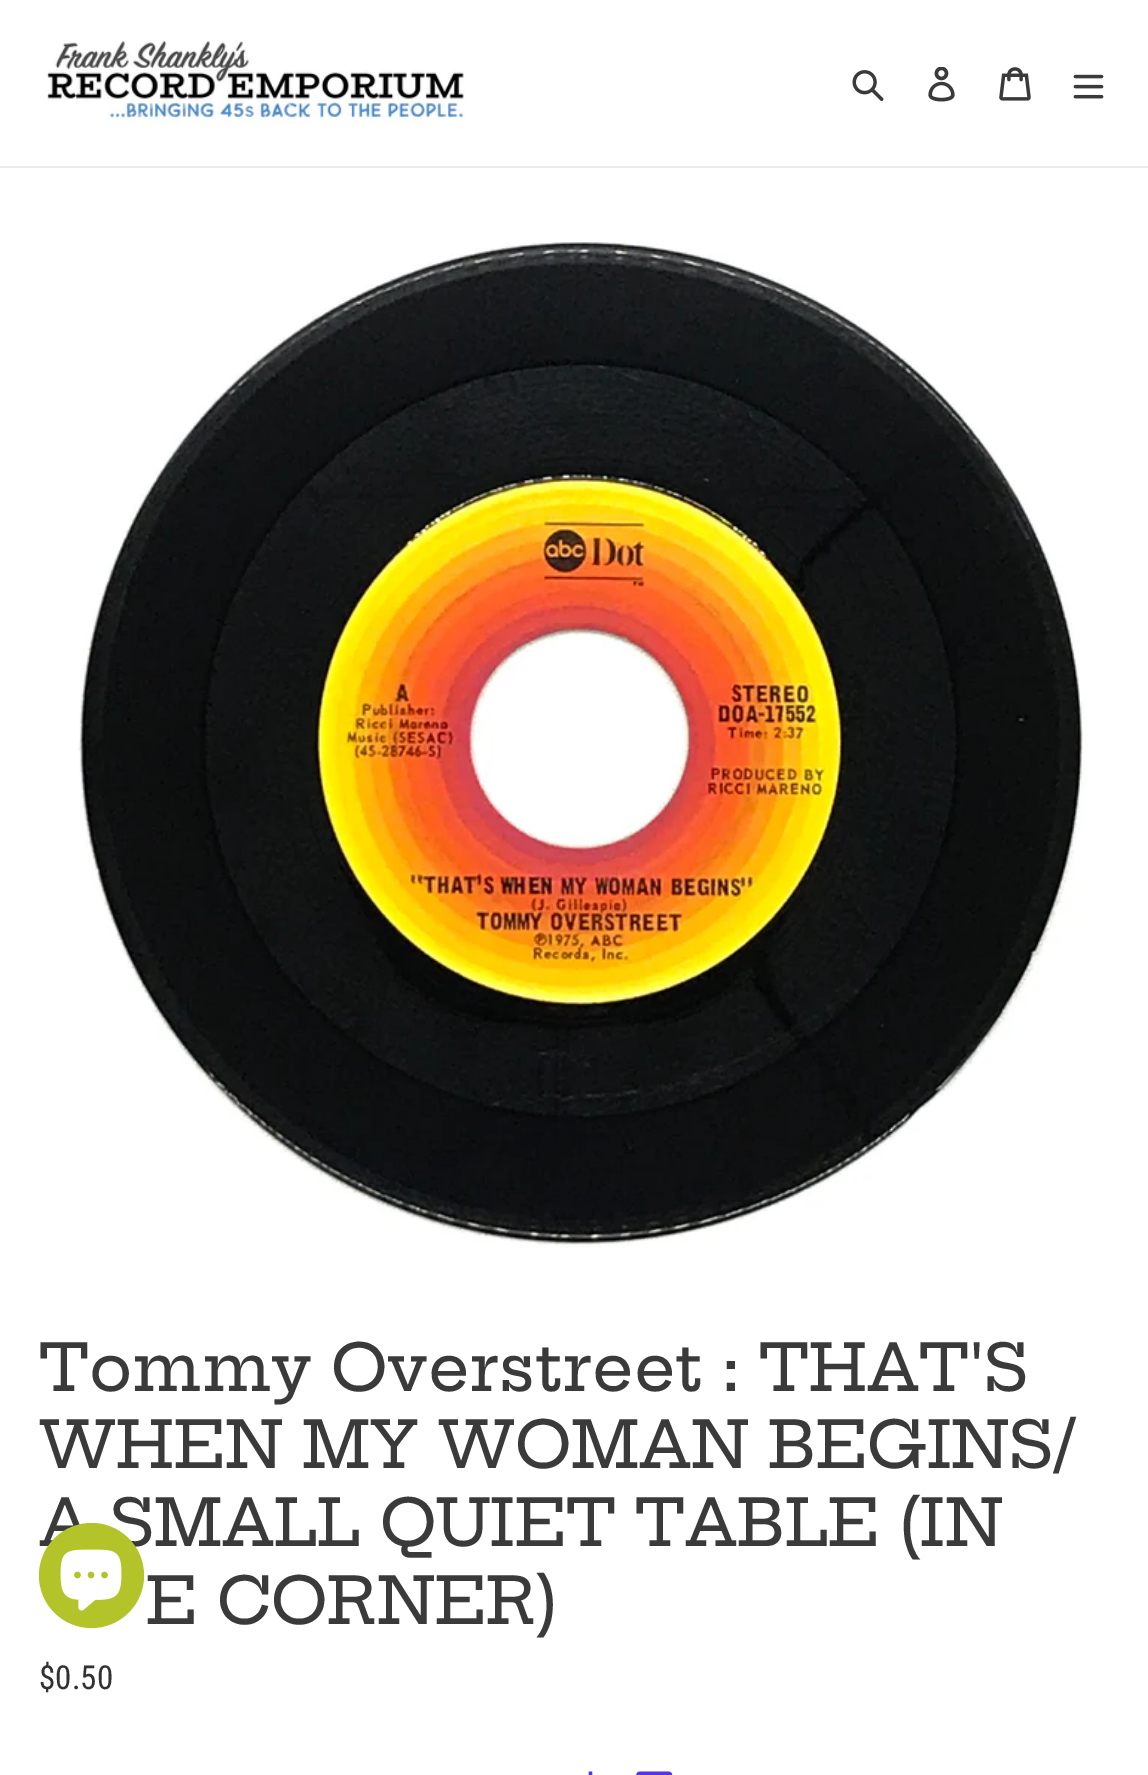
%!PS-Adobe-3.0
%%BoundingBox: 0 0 1148 1775
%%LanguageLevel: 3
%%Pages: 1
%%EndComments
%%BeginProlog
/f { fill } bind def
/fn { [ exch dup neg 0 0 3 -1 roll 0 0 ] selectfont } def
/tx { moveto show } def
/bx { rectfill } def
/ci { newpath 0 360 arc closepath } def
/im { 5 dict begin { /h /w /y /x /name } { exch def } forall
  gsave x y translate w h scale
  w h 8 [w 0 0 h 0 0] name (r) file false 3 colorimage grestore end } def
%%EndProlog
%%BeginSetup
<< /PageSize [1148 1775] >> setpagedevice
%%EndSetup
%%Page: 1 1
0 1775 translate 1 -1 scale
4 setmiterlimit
1 setgray
0 0 1148 1775 bx
0.922 setgray
0 166 1148 2 bx
(image0.raw) 46 40 420 85 im
(image1.raw) 852 70 32 31 im
(image2.raw) 928 67 27 35 im
(image3.raw) 999 67 32 34 im
(image4.raw) 1073 74 31 25 im
(image5.raw) 78 242 1008 1006 im
/HeptaSlab-Medium 64.75 fn
0.227 setgray
(Tommy Overstreet : THAT'S) 39 1391 tx
(WHEN MY WOMAN BEGINS/) 39 1468 tx
(A SMALL QUIET TABLE \(IN) 39 1546 tx
(E CORNER\)) 146 1624 tx
/RobotoCondensed-Regular 33 fn
0.2 0.196 0.196 setrgbcolor
($0.50) 39 1689 tx
(image6.raw) 588 1771 85 4 im
0.702 0.769 0.169 setrgbcolor
91.5 1575.5 52.5 ci f
(image7.raw) 60 1549 62 62 im
showpage
%%EOF
